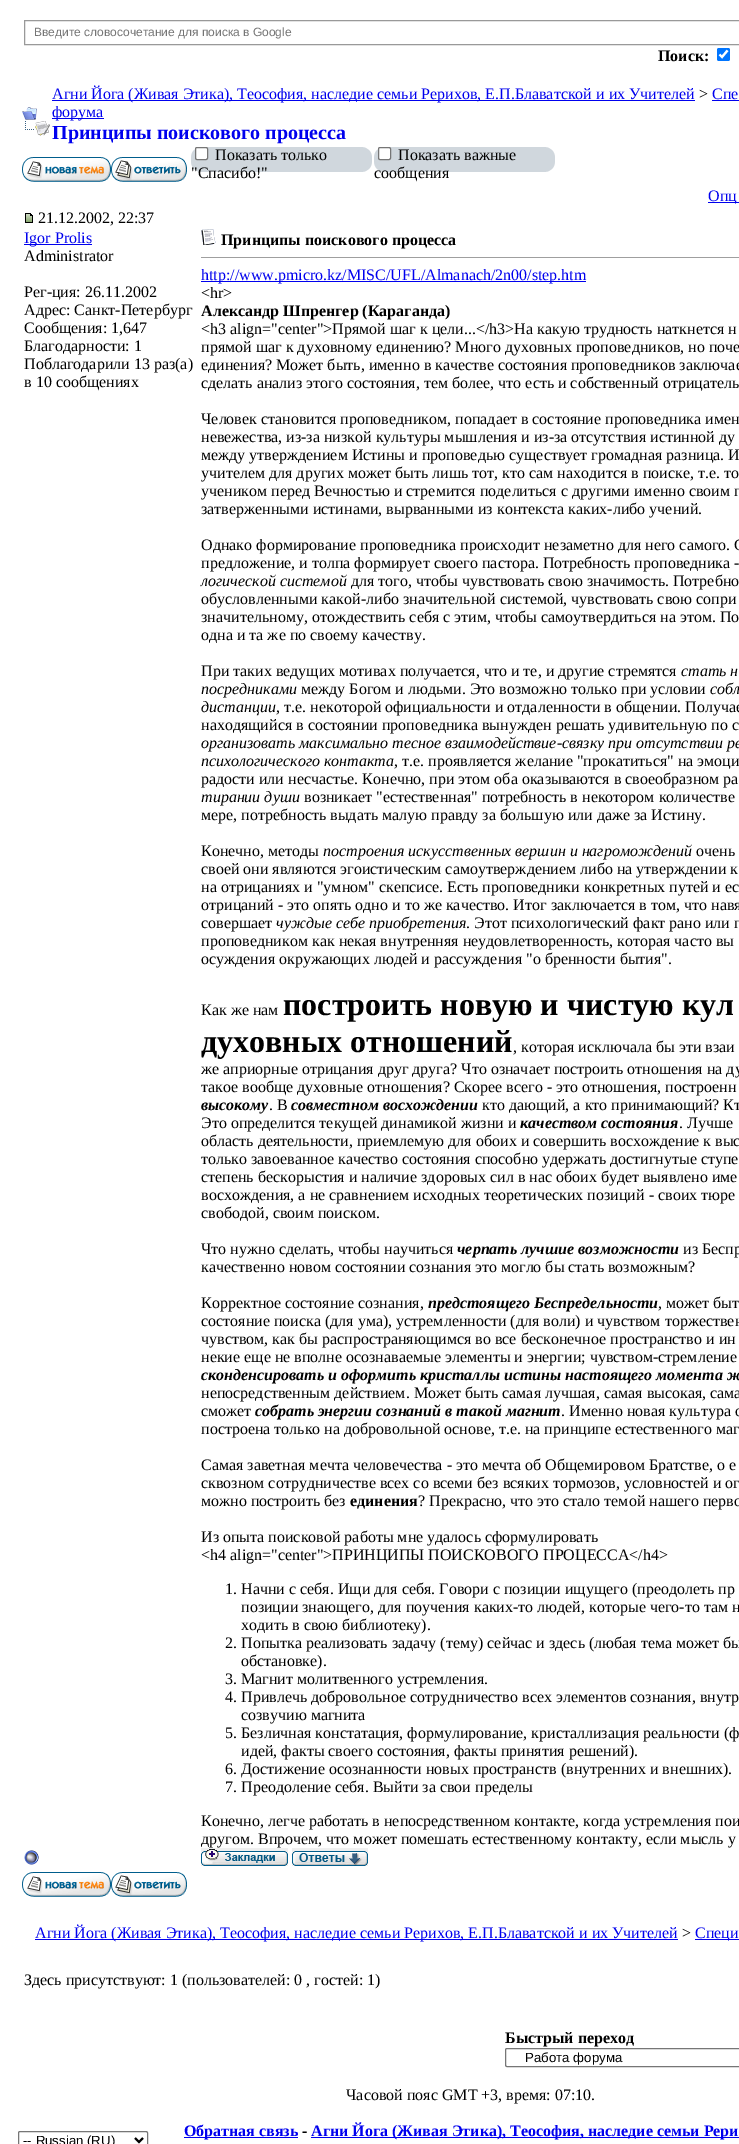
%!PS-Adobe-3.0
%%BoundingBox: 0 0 739 2144
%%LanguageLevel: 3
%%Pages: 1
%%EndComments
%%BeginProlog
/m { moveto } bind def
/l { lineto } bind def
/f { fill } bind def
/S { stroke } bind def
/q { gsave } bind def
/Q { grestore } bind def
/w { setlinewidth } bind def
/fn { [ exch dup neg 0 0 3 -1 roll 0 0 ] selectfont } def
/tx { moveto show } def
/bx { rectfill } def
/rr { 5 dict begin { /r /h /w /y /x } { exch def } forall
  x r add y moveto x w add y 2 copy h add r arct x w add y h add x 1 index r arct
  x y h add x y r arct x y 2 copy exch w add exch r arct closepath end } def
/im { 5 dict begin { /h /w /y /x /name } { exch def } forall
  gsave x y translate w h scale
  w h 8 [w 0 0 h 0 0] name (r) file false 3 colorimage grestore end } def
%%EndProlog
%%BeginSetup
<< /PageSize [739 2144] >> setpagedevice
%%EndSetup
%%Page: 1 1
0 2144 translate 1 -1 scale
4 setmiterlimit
1 setgray
0 0 739 2144 bx
0.6 setgray
24.5 20.5 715 24 rectstroke
/LiberationSans-Regular 12 fn
0.459 setgray
(Введите словосочетание для поиска в Google) 34 36 tx
/LiberationSerif-Bold 16 fn
0 setgray
(Поиск:) 658 61 tx
0 0.459 1 setrgbcolor
717 48 13 13 2 rr f
1 setgray
2.1 w
719.5 54.5 m 722 57 l 727.5 50.5 l S
(image0.raw) 22 107 15 13 im
0 0 0.933 setrgbcolor
52 100 643 1 bx
/LiberationSerif-Regular 16 fn
(Агни Йога \(Живая Этика\), Теософия, наследие семьи Рерихов, Е.П.Блаватской и их Учителей) 52 99 tx
0 setgray
(>) 699 99 tx
0 0 0.933 setrgbcolor
(Спе) 712 99 tx
712 100 27 1 bx
52 118 52 1 bx
(форума) 52 117 tx
(image1.raw) 25 121 25 15 im
/LiberationSerif-Bold 20 fn
(Принципы поискового процесса) 52 139 tx
(image2.raw) 22 157 89 25 im
(image3.raw) 111 157 76 25 im
(image4.raw) 191 147 181 25 im
1 setgray
195.5 147.5 12 12 1.5 rr q f Q
0.463 setgray
1 w
S
/LiberationSerif-Regular 16 fn
0 setgray
(Показать только) 215 160 tx
("Спасибо!") 191 178 tx
(image4.raw) 374 147 181 25 im
1 setgray
378.5 147.5 12 12 1.5 rr q f Q
0.463 setgray
S
0 setgray
(Показать важные) 398 160 tx
(сообщения) 374 178 tx
0 0 0.933 setrgbcolor
708 202 31 1 bx
(Опц) 708 201 tx
(image5.raw) 25 213 8 10 im
0 setgray
(21.12.2002, 22:37) 38 223 tx
0 0 0.933 setrgbcolor
24 244 68 1 bx
(Igor Prolis) 24 243 tx
0 setgray
(Administrator) 24 261 tx
(Рег-ция: 26.11.2002) 24 297 tx
(Адрес: Санкт-Петербург) 24 315 tx
(Сообщения: 1,647) 24 333 tx
(Благодарности: 1) 24 351 tx
(Поблагодарили 13 раз\(а\)) 24 369 tx
(в 10 сообщениях) 24 387 tx
(image6.raw) 201 229 15 16 im
/LiberationSerif-Bold 16 fn
(Принципы поискового процесса) 221 245 tx
0.624 setgray
201 257 538 1 bx
0 0 0.933 setrgbcolor
201 281 385 1 bx
/LiberationSerif-Regular 16 fn
(http://www.pmicro.kz/MISC/UFL/Almanach/2n00/step.htm) 201 280 tx
0 setgray
(<hr>) 201 298 tx
/LiberationSerif-Bold 16 fn
(Александр Шпренгер \(Караганда\)) 201 316 tx
/LiberationSerif-Regular 16 fn
(<h3 align="center">Прямой шаг к цели...</h3>На какую трудность наткнется н) 201 334 tx
(прямой шаг к духовному единению? Много духовных проповедников, но поче) 201 352 tx
(единения? Может быть, именно в качестве состояния проповедников заключае) 201 370 tx
(сделать анализ этого состояния, тем более, что есть и собственный отрицатель) 201 388 tx
(Человек становится проповедником, попадает в состояние проповедника имен) 201 424 tx
(невежества, из-за низкой культуры мышления и из-за отсутствия истинной ду) 201 442 tx
(между утверждением Истины и проповедью существует громадная разница. И) 201 460 tx
(учителем для других может быть лишь тот, кто сам находится в поиске, т.е. то) 201 478 tx
(учеником перед Вечностью и стремится поделиться с другими именно своим п) 201 496 tx
(затверженными истинами, вырванными из контекста каких-либо учений.) 201 514 tx
(Однако формирование проповедника происходит незаметно для него самого. С) 201 550 tx
(предложение, и толпа формирует своего пастора. Потребность проповедника -) 201 568 tx
/LiberationSerif-Italic 16 fn
(логической системой) 201 586 tx
/LiberationSerif-Regular 16 fn
(для того, чтобы чувствовать свою значимость. Потребно) 351 586 tx
(обусловленными какой-либо значительной системой, чувствовать свою сопри) 201 604 tx
(значительному, отождествить себя с этим, чтобы самоутвердиться на этом. По) 201 622 tx
(одна и та же по своему качеству.) 201 640 tx
(При таких ведущих мотивах получается, что и те, и другие стремятся) 201 676 tx
/LiberationSerif-Italic 16 fn
(стать н) 681 676 tx
(посредниками) 201 694 tx
/LiberationSerif-Regular 16 fn
(между Богом и людьми. Это возможно только при условии) 301 694 tx
/LiberationSerif-Italic 16 fn
(собл) 710 694 tx
(дистанции) 201 712 tx
/LiberationSerif-Regular 16 fn
(, т.е. некоторой официальности и отдаленности в общении. Получае) 276 712 tx
(находящийся в состоянии проповедника вынужден решать удивительную по с) 201 730 tx
/LiberationSerif-Italic 16 fn
(организовать максимально тесное взаимодействие-связку при отсутствии ре) 201 748 tx
(психологического контакта) 201 766 tx
/LiberationSerif-Regular 16 fn
(, т.е. проявляется желание "прокатиться" на эмоци) 394 766 tx
(радости или несчастье. Конечно, при этом оба оказываются в своеобразном ра) 201 784 tx
/LiberationSerif-Italic 16 fn
(тирании души) 201 802 tx
/LiberationSerif-Regular 16 fn
(возникает "естественная" потребность в некотором количестве) 304 802 tx
(мере, потребность выдать малую правду за большую или даже за Истину.) 201 820 tx
(Конечно, методы) 201 856 tx
/LiberationSerif-Italic 16 fn
(построения искусственных вершин и нагромождений) 323 856 tx
/LiberationSerif-Regular 16 fn
(очень) 696 856 tx
(своей они являются эгоистическим самоутверждением либо на утверждении к) 201 874 tx
(на отрицаниях и "умном" скепсисе. Есть проповедники конкретных путей и ес) 201 892 tx
(отрицаний - это опять одно и то же качество. Итог заключается в том, что навя) 201 910 tx
(совершает) 201 928 tx
/LiberationSerif-Italic 16 fn
(чуждые себе приобретения) 276 928 tx
/LiberationSerif-Regular 16 fn
(. Этот психологический факт рано или п) 466 928 tx
(проповедником как некая внутренняя неудовлетворенность, которая часто вы) 201 946 tx
(осуждения окружающих людей и рассуждения "о бренности бытия".) 201 964 tx
(Как же нам) 201 1015 tx
/LiberationSerif-Bold 32 fn
(построить новую и чистую кул) 283 1015 tx
(духовных отношений) 201 1052 tx
/LiberationSerif-Regular 16 fn
(, которая исключала бы эти взаи) 513 1052 tx
(же априорные отрицания друг друга? Что означает построить отношения на ду) 201 1074 tx
(такое вообще духовные отношения? Скорее всего - это отношения, построенн) 201 1092 tx
/LiberationSerif-BoldItalic 16 fn
(высокому) 201 1110 tx
/LiberationSerif-Regular 16 fn
(. В) 269 1110 tx
/LiberationSerif-BoldItalic 16 fn
(совместном восхождении) 291 1110 tx
/LiberationSerif-Regular 16 fn
(кто дающий, а кто принимающий? Кт) 482 1110 tx
(Это определится текущей динамикой жизни и) 201 1128 tx
/LiberationSerif-BoldItalic 16 fn
(качеством состояния) 520 1128 tx
/LiberationSerif-Regular 16 fn
(. Лучше) 679 1128 tx
(область деятельности, приемлемую для обоих и совершить восхождение к выс) 201 1146 tx
(только завоеванное качество состояния способно удержать достигнутые ступе) 201 1164 tx
(степень бескорыстия и наличие здоровых сил в нас обоих будет выявлено име) 201 1182 tx
(восхождения, а не сравнением исходных теоретических позиций - своих тюре) 201 1200 tx
(свободой, своим поиском.) 201 1218 tx
(Что нужно сделать, чтобы научиться) 201 1254 tx
/LiberationSerif-BoldItalic 16 fn
(черпать лучшие возможности) 457 1254 tx
/LiberationSerif-Regular 16 fn
(из Беспр) 683 1254 tx
(качественно новом состоянии сознания это могло бы стать возможным?) 201 1272 tx
(Корректное состояние сознания,) 201 1308 tx
/LiberationSerif-BoldItalic 16 fn
(предстоящего Беспредельности) 428 1308 tx
/LiberationSerif-Regular 16 fn
(, может быт) 658 1308 tx
(состояние поиска \(для ума\), устремленности \(для воли\) и чувством торжествен) 201 1326 tx
(чувством, как бы распространяющимся во все бесконечное пространство и ин) 201 1344 tx
(некие еще не вполне осознаваемые элементы и энергии; чувством-стремление) 201 1362 tx
/LiberationSerif-BoldItalic 16 fn
(сконденсировать и оформить кристаллы истины настоящего момента ж) 201 1380 tx
/LiberationSerif-Regular 16 fn
(непосредственным действием. Может быть самая лучшая, самая высокая, сама) 201 1398 tx
(сможет) 201 1416 tx
/LiberationSerif-BoldItalic 16 fn
(собрать энергии сознаний в такой магнит) 255 1416 tx
/LiberationSerif-Regular 16 fn
(. Именно новая культура о) 561 1416 tx
(построена только на добровольной основе, т.е. на принципе естественного маг) 201 1434 tx
(Самая заветная мечта человечества - это мечта об Общемировом Братстве, о е) 201 1470 tx
(сквозном сотрудничестве всех со всеми без всяких тормозов, условностей и ог) 201 1488 tx
(можно построить без) 201 1506 tx
/LiberationSerif-Bold 16 fn
(единения) 350 1506 tx
/LiberationSerif-Regular 16 fn
(? Прекрасно, что это стало темой нашего перво) 418 1506 tx
(Из опыта поисковой работы мне удалось сформулировать) 201 1542 tx
(<h4 align="center">ПРИНЦИПЫ ПОИСКОВОГО ПРОЦЕССА</h4>) 201 1560 tx
(1. Начни с себя. Ищи для себя. Говори с позиции ищущего \(преодолеть пр) 225 1594 tx
(позиции знающего, для поучения каких-то людей, которые чего-то там н) 241 1612 tx
(ходить в свою библиотеку\).) 241 1630 tx
(2. Попытка реализовать задачу \(тему\) сейчас и здесь \(любая тема может бы) 225 1648 tx
(обстановке\).) 241 1666 tx
(3. Магнит молитвенного устремления.) 225 1684 tx
(4. Привлечь добровольное сотрудничество всех элементов сознания, внутр) 225 1702 tx
(созвучию магнита) 241 1720 tx
(5. Безличная констатация, формулирование, кристаллизация реальности \(ф) 225 1738 tx
(идей, факты своего состояния, факты принятия решений\).) 241 1756 tx
(6. Достижение осознанности новых пространств \(внутренних и внешних\).) 225 1774 tx
(7. Преодоление себя. Выйти за свои пределы) 225 1792 tx
(Конечно, легче работать в непосредственном контакте, когда устремления пои) 201 1826 tx
(другом. Впрочем, что может помешать естественному контакту, если мысль у) 201 1844 tx
(image7.raw) 24 1850 15 15 im
(image8.raw) 201 1848 87 18 im
(image9.raw) 292 1848 76 18 im
(image2.raw) 22 1872 89 25 im
(image3.raw) 111 1872 76 25 im
0 0 0.933 setrgbcolor
35 1939 643 1 bx
(Агни Йога \(Живая Этика\), Теософия, наследие семьи Рерихов, Е.П.Блаватской и их Учителей) 35 1938 tx
0 setgray
(>) 682 1938 tx
0 0 0.933 setrgbcolor
695 1939 44 1 bx
(Специ) 695 1938 tx
0 setgray
(Здесь присутствуют: 1 \(пользователей: 0 , гостей: 1\)) 24 1985 tx
/LiberationSerif-Bold 16 fn
(Быстрый переход) 505 2043 tx
0.463 setgray
505.5 2048.5 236 18 1.5 rr S
/LiberationSans-Regular 13.25 fn
0 setgray
(Работа форума) 525 2062 tx
/LiberationSerif-Regular 16 fn
(Часовой пояс GMT +3, время: 07:10.) 346 2100 tx
0.463 setgray
18.5 2131.5 129 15 1.5 rr S
0 setgray
2 w
135 2138 m 139 2142 l 143 2138 l S
/LiberationSans-Regular 13.25 fn
(-- Russian \(RU\)) 23 2145 tx
0 0 0.933 setrgbcolor
184 2137 114 1 bx
/LiberationSerif-Bold 16 fn
(Обратная связь) 184 2136 tx
0 setgray
(-) 302 2136 tx
0 0 0.933 setrgbcolor
311 2137 428 1 bx
(Агни Йога \(Живая Этика\), Теософия, наследие семьи Рери) 311 2136 tx
showpage
%%EOF
